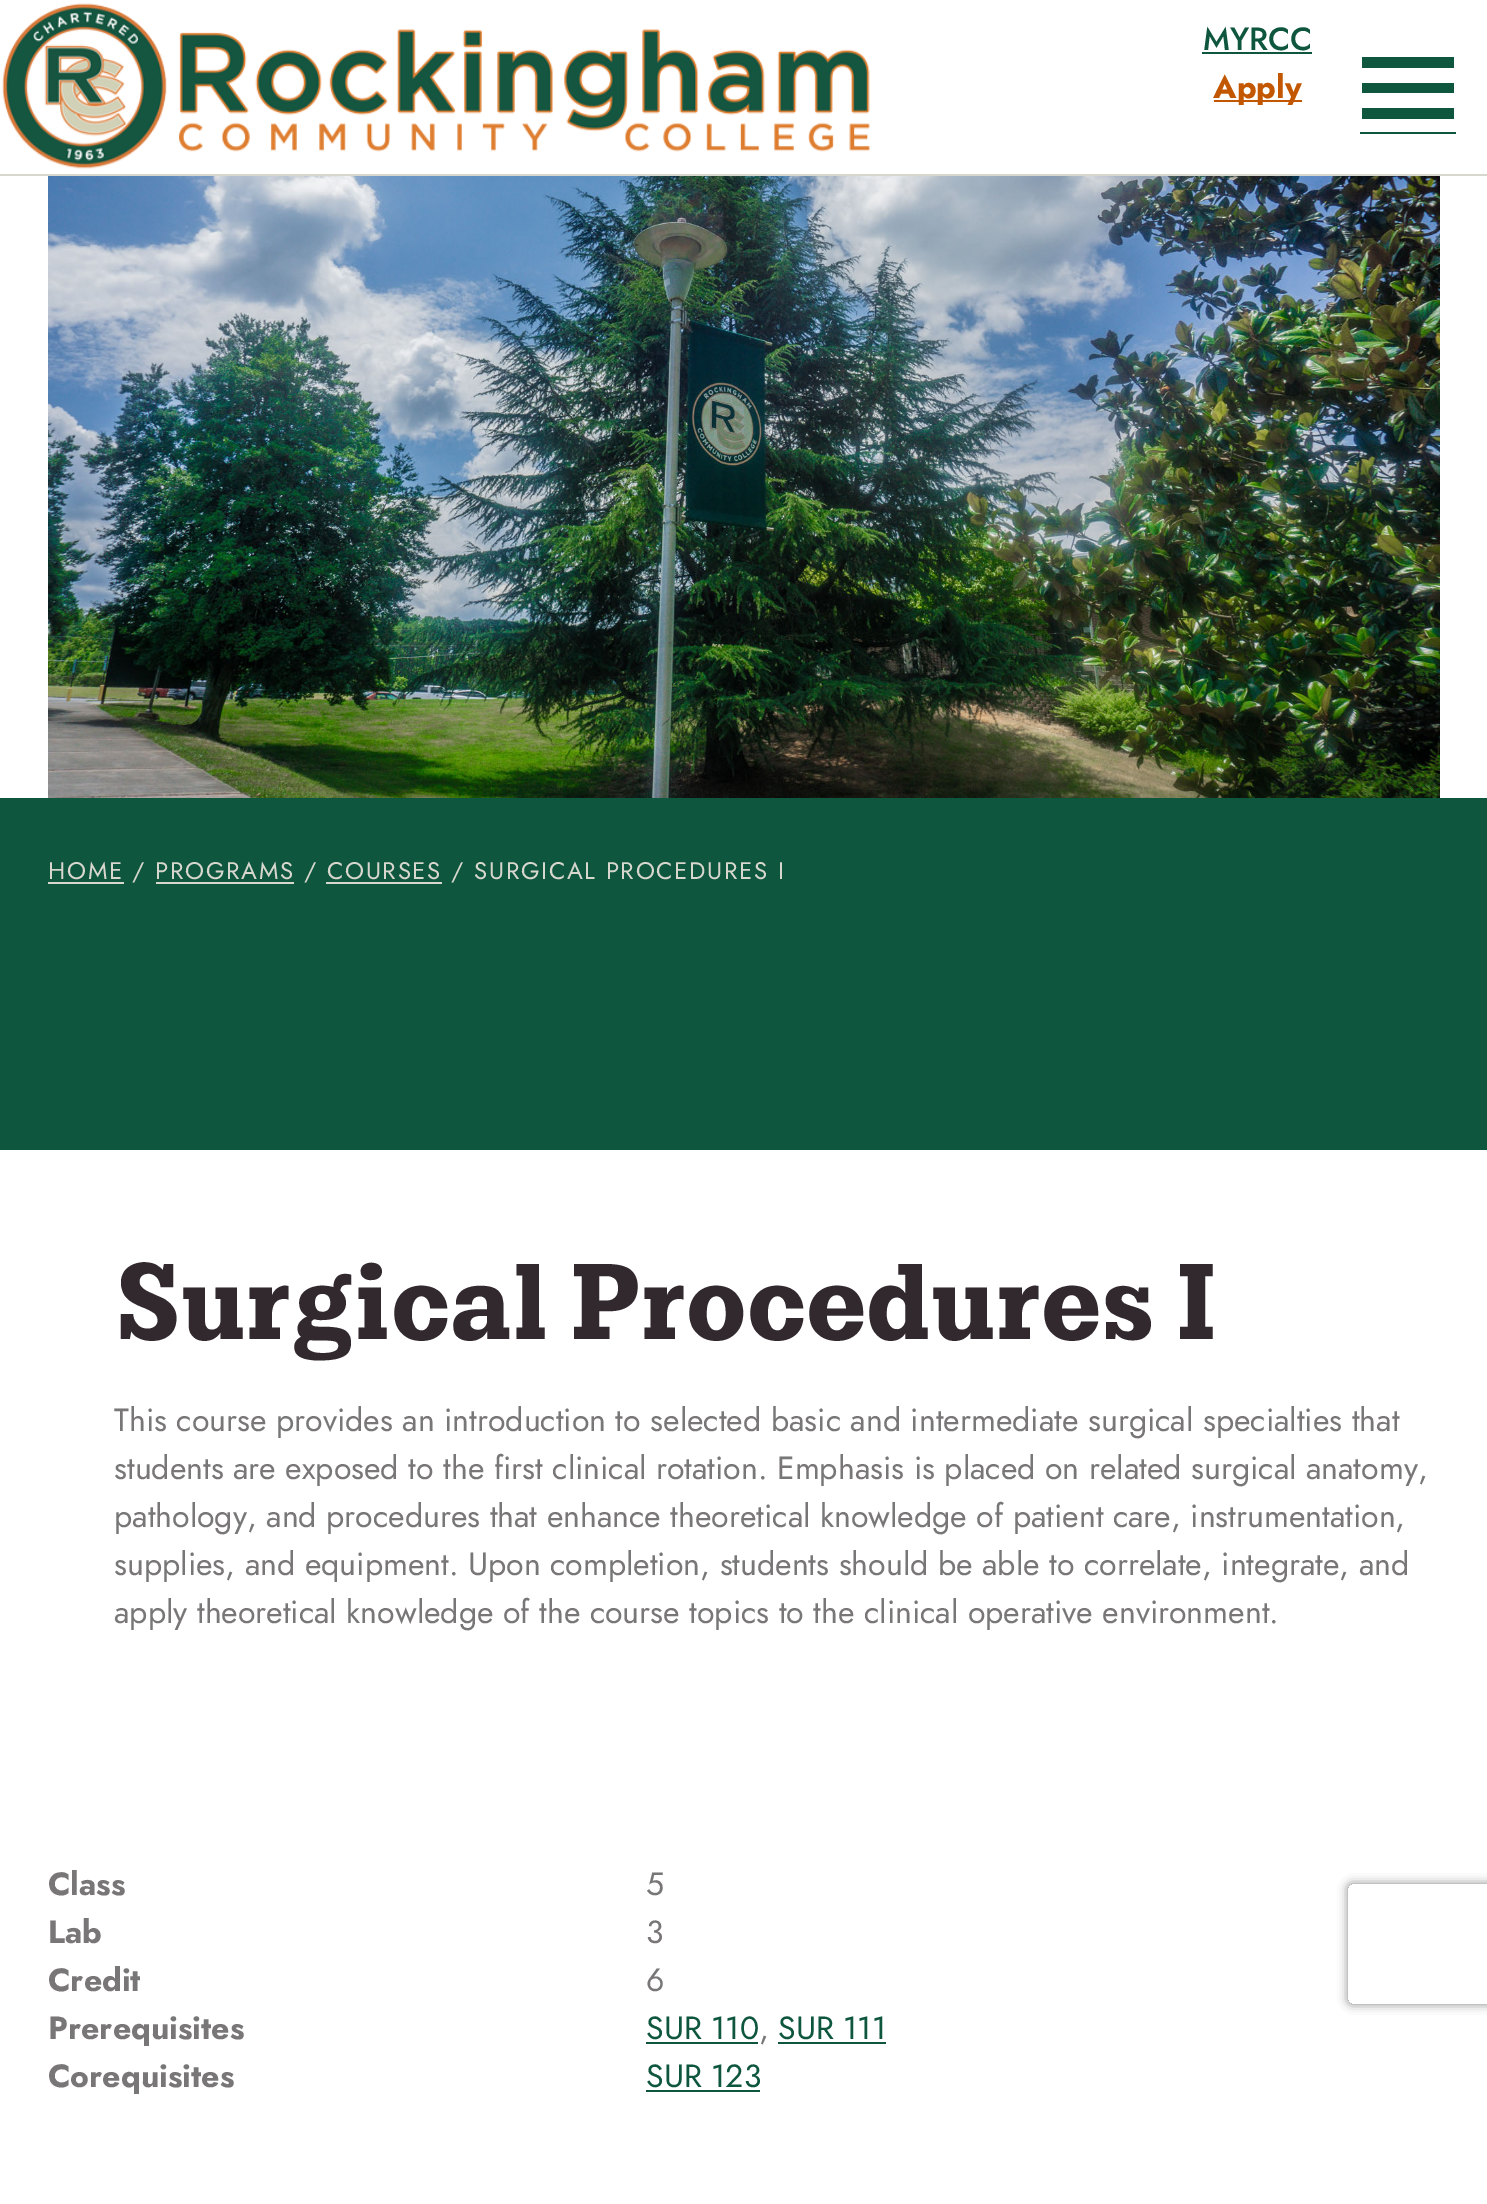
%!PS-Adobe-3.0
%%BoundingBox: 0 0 1487 2204
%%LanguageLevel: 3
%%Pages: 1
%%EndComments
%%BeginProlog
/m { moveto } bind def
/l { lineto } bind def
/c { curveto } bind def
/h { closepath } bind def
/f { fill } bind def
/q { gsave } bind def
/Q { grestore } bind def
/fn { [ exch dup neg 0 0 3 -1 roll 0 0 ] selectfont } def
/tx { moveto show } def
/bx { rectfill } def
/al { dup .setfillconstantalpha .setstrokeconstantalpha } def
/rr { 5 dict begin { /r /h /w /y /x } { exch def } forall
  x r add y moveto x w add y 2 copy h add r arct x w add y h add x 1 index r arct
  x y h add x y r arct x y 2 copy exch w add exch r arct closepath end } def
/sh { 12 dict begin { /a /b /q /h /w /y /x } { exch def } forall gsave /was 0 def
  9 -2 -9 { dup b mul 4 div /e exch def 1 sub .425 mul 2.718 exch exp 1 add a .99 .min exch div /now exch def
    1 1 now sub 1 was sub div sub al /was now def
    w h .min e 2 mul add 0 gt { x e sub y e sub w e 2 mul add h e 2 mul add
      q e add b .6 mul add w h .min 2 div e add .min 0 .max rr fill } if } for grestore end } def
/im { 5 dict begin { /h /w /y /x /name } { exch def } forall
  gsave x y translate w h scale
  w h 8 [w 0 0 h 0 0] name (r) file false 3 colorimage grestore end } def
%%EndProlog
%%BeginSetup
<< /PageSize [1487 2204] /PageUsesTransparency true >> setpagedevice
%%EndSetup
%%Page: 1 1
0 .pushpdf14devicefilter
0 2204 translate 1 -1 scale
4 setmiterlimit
1 setgray
0 0 1487 2204 bx
0.847 0.843 0.808 setrgbcolor
0 174 1487 2 bx
(image0.raw) 2 3 868 166 im
/Jost-Medium 32 fn
0.059 0.337 0.247 setrgbcolor
(MYRCC) 1203 50 tx
1202 52 110 2 bx
0.761 0.341 0 setrgbcolor
1214 100 88 2 bx
/Jost-Bold 32 fn
(Apply) 1213 98 tx
0.059 0.337 0.247 setrgbcolor
1360 132 96 2 bx
1362 119 m 1454 119 l 1454 108 l 1362 108 l h 1362 93 m 1454 93 l 1454 83 l 1362 83 l h 1362 57 m 1362 68 l 1454 68 l 1454 57 l h f
(image1.raw) 48 176 1392 622 im
0 798 1487 352 bx
0.847 0.843 0.808 setrgbcolor
48 882 76 2 bx
/Jost-Regular 24 fn
48 879 m 1.7 0 (HOME / PROGRAMS / COURSES / SURGICAL PROCEDURES I) ashow
156 882 138 2 bx
326 882 116 2 bx
/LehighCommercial-Bold 120 fn
0.196 0.161 0.184 setrgbcolor
(Surgical Procedures I) 114 1339 tx
/Jost-Regular 32 fn
0.471 0.463 0.463 setrgbcolor
(This course provides an introduction to selected basic and intermediate surgical specialties that) 114 1431 tx
(students are exposed to the first clinical rotation. Emphasis is placed on related surgical anatomy,) 114 1479 tx
(pathology, and procedures that enhance theoretical knowledge of patient care, instrumentation,) 114 1527 tx
(supplies, and equipment. Upon completion, students should be able to correlate, integrate, and) 114 1575 tx
(apply theoretical knowledge of the course topics to the clinical operative environment.) 114 1623 tx
/Jost-Bold 32 fn
(Class) 48 1895 tx
/Jost-Regular 32 fn
(5) 646 1895 tx
/Jost-Bold 32 fn
(Lab) 48 1943 tx
/Jost-Regular 32 fn
(3) 646 1943 tx
/Jost-Bold 32 fn
(Credit) 48 1991 tx
/Jost-Regular 32 fn
(6) 646 1991 tx
/Jost-Bold 32 fn
(Prerequisites) 48 2039 tx
/Jost-Regular 32 fn
0.059 0.337 0.247 setrgbcolor
(SUR 110) 646 2039 tx
646 2042 112 2 bx
0.471 0.463 0.463 setrgbcolor
(,) 759 2039 tx
0.059 0.337 0.247 setrgbcolor
(SUR 111) 778 2039 tx
778 2042 108 2 bx
/Jost-Bold 32 fn
0.471 0.463 0.463 setrgbcolor
(Corequisites) 48 2087 tx
/Jost-Regular 32 fn
0.059 0.337 0.247 setrgbcolor
(SUR 123) 646 2087 tx
646 2090 114 2 bx
q
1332 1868 m 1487 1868 l 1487 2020 l 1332 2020 l h 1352 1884 m 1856 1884 l 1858 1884 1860 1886 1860 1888 c 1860 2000 l 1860 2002 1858 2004 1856 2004 c 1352 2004 l 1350 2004 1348 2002 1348 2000 c 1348 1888 l 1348 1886 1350 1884 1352 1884 c h eoclip newpath
0.502 setgray
1348 1884 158 120 4 5 1 sh
Q
.poppdf14devicefilter showpage
%%EOF
